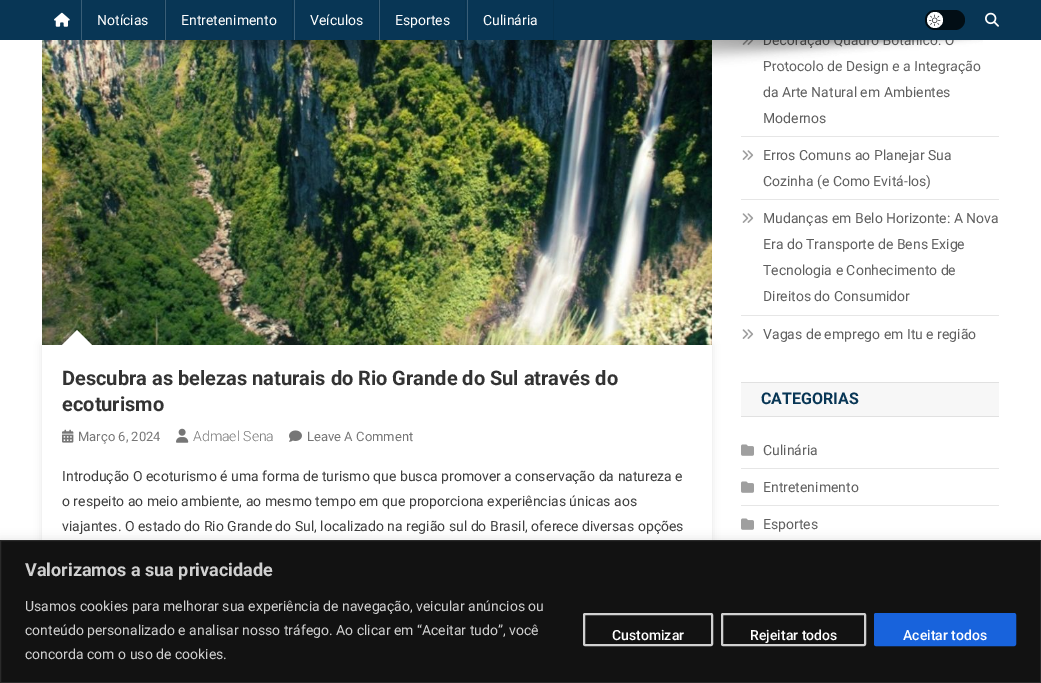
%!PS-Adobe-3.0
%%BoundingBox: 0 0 1041 683
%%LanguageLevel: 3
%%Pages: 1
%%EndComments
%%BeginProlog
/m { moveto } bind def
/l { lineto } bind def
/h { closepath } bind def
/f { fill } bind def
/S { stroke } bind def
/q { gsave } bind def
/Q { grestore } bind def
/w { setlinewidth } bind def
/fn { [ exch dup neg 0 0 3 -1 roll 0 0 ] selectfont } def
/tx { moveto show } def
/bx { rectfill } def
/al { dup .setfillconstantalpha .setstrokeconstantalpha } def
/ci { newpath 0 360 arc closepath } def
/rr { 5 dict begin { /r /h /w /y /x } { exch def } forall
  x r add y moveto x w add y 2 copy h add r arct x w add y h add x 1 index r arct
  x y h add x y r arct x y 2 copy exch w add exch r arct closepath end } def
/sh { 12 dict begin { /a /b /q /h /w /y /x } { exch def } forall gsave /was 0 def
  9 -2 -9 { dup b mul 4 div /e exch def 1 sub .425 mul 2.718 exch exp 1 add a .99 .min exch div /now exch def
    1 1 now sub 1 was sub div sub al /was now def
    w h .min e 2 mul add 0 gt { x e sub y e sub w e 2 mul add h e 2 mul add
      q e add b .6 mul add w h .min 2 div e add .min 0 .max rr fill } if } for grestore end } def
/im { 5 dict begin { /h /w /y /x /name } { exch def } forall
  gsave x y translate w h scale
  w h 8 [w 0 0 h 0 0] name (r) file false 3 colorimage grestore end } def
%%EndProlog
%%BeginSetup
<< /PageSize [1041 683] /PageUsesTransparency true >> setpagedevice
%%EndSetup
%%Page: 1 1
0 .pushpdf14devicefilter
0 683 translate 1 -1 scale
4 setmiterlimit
1 setgray
0 0 1041 683 bx
0.031 0.212 0.333 setrgbcolor
0 0 1041 40 bx
(image0.raw) 54 12 16 15 im
0.027 0.196 0.306 setrgbcolor
164 0 1 40 bx
0.224 0.369 0.467 setrgbcolor
81 0 1 40 bx
/Roboto-Regular 14 fn
1 setgray
(Notícias) 97 25 tx
0.027 0.196 0.306 setrgbcolor
292 0 1 40 bx
0.224 0.369 0.467 setrgbcolor
165 0 1 40 bx
1 setgray
(Entretenimento) 181 25 tx
0.027 0.196 0.306 setrgbcolor
378 0 1 40 bx
0.224 0.369 0.467 setrgbcolor
294 0 1 40 bx
1 setgray
(Veículos) 310 25 tx
0.027 0.196 0.306 setrgbcolor
465 0 1 40 bx
0.224 0.369 0.467 setrgbcolor
379 0 1 40 bx
1 setgray
(Esportes) 395 25 tx
0.027 0.196 0.306 setrgbcolor
553 0 1 40 bx
0.224 0.369 0.467 setrgbcolor
467 0 1 40 bx
1 setgray
(Culinária) 483 25 tx
0.008 0.055 0.082 setrgbcolor
925 10 40 20 10 rr f
1 setgray
935 20 8 ci f
(image1.raw) 929 14 12 12 im
(image2.raw) 985 12 14 15 im
(image4.raw) 42 40 670 305 im
(image8.raw) 742 40 12 5 im
0.373 setgray
(Protocolo de Design e a Integração) 763 71 tx
(image3.raw) 64 40 919 28 im
q
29 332 m 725 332 l 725 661 l 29 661 l h 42 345 m 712 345 l 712 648 l 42 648 l h eoclip newpath
0 setgray
42 345 670 303 0 4 0.1 sh
Q
1 setgray
92 345 m 62 345 l 77 330 l h f
/Roboto-Bold 20 fn
0.2 setgray
(Descubra as belezas naturais do Rio Grande do Sul através do) 62 385 tx
(ecoturismo) 62 411 tx
(image5.raw) 62 429 12 14 im
/Roboto-Regular 13 fn
0.463 setgray
(Março 6, 2024) 78 441 tx
(image6.raw) 176 428 13 15 im
/Roboto-Light 14 fn
(Admael Sena) 193 441 tx
(image7.raw) 289 430 13 12 im
/Roboto-Regular 13 fn
(Leave A Comment) 307 441 tx
/Roboto-Regular 14 fn
0.239 setgray
(Introdução O ecoturismo é uma forma de turismo que busca promover a conservação da natureza e) 62 481 tx
(o respeito ao meio ambiente, ao mesmo tempo em que proporciona experiências únicas aos) 62 506 tx
(viajantes. O estado do Rio Grande do Sul, localizado na região sul do Brasil, oferece diversas opções) 62 531 tx
0.902 setgray
741 136 258 1 bx
0.373 setgray
(da Arte Natural em Ambientes) 763 97 tx
(Modernos) 763 123 tx
0.902 setgray
741 199 258 1 bx
(image9.raw) 742 150 12 10 im
0.373 setgray
(Erros Comuns ao Planejar Sua) 763 160 tx
(Cozinha \(e Como Evitá-los\)) 763 186 tx
0.902 setgray
741 315 258 1 bx
(image9.raw) 742 213 12 10 im
0.373 setgray
(Mudanças em Belo Horizonte: A Nova) 763 223 tx
(Era do Transporte de Bens Exige) 763 249 tx
(Tecnologia e Conhecimento de) 763 275 tx
(Direitos do Consumidor) 763 301 tx
(image9.raw) 742 329 12 10 im
(Vagas de emprego em Itu e região) 763 339 tx
0.969 setgray
741 383 258 33 bx
0.882 setgray
741 382 258 1 bx
741 416 258 1 bx
/Roboto-Bold 16 fn
0.031 0.212 0.333 setrgbcolor
(CATEGORIAS) 761 404 tx
0.902 setgray
741 468 258 1 bx
(image10.raw) 741 444 13 12 im
/Roboto-Regular 14 fn
0.373 setgray
(Culinária) 763 455 tx
0.902 setgray
741 505 258 1 bx
(image10.raw) 741 481 13 12 im
0.373 setgray
(Entretenimento) 763 492 tx
(image10.raw) 741 518 13 12 im
(Esportes) 763 529 tx
0.675 0.671 0.671 setrgbcolor
0 539 1041 143 0 5 0.3 sh
0.071 setgray
0.5 540.5 m 1040.5 540.5 l 1040.5 682.5 l 0.5 682.5 l h q f Q
0.165 setgray
S
/Roboto-Bold 18 fn
0.816 setgray
(Valorizamos a sua privacidade) 25 576 tx
/Roboto-Regular 14 fn
(Usamos cookies para melhorar sua experiência de navegação, veicular anúncios ou) 25 611 tx
(conteúdo personalizado e analisar nosso tráfego. Ao clicar em “Aceitar tudo”, você) 25 635 tx
(concorda com o uso de cookies.) 25 659 tx
2 w
584 614 128 31 1 rr S
/Roboto-Medium 14 fn
1 setgray
(Customizar) 612 640 tx
0.816 setgray
722 614 143 31 1 rr S
1 setgray
(Rejeitar todos) 750 640 tx
0.094 0.388 0.863 setrgbcolor
875 614 140 31 1 rr q f Q
S
1 setgray
(Aceitar todos) 903 640 tx
.poppdf14devicefilter showpage
%%EOF
